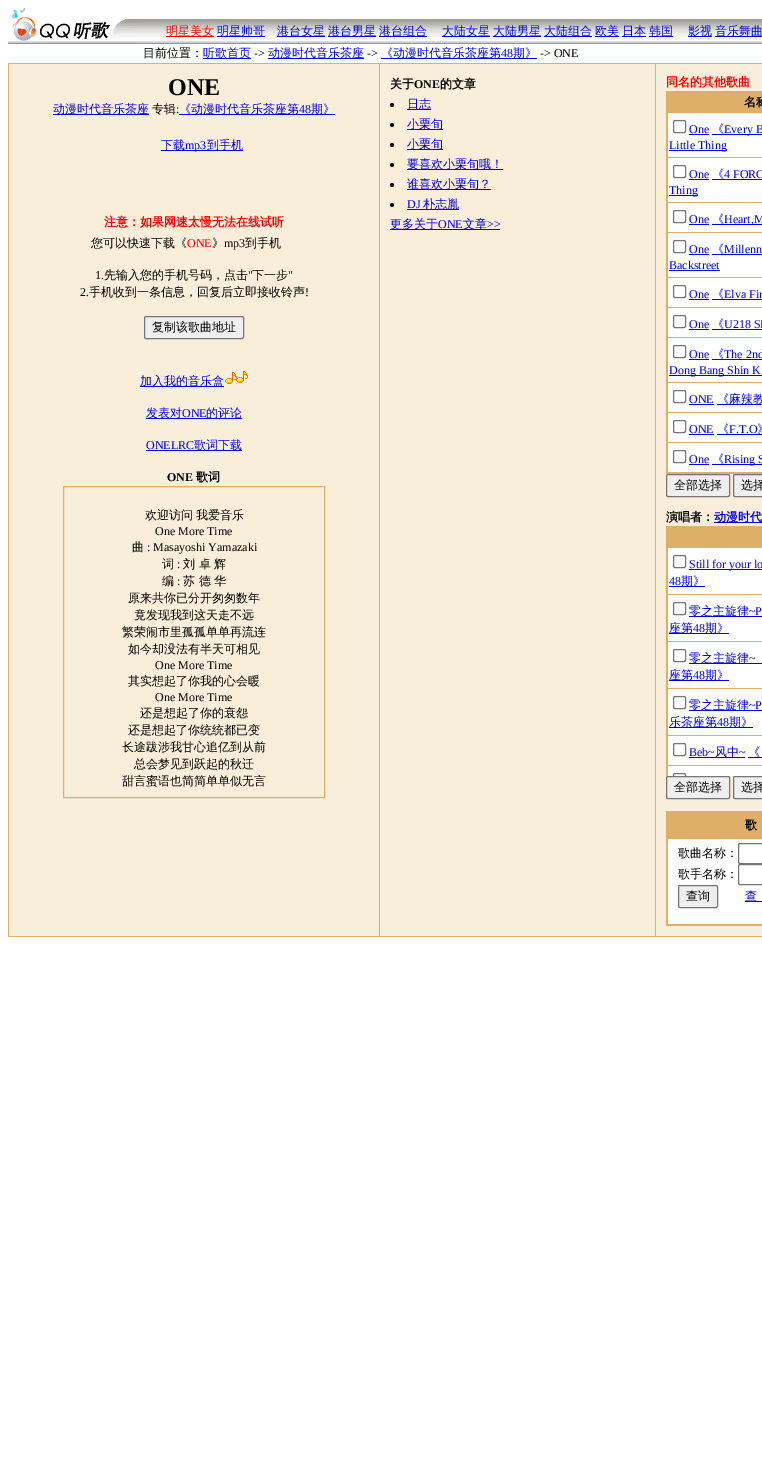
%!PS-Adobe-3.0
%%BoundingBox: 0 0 762 1477
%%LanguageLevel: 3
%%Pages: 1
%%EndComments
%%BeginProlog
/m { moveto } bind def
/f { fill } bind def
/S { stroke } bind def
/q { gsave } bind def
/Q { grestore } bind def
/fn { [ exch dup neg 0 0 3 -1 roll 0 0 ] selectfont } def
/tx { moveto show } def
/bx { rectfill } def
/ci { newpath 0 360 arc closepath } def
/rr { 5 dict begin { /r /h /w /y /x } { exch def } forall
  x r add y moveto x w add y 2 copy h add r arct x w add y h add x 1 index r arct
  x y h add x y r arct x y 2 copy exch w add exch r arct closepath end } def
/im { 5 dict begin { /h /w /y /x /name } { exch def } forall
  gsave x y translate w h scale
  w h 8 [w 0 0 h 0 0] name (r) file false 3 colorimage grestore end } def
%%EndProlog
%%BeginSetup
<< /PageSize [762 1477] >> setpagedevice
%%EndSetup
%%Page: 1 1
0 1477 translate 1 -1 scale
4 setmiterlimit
1 setgray
0 0 762 1477 bx
(image0.raw) 8 8 127 36 im
(image1.raw) 135 19 627 25 im
1 0 0 setrgbcolor
166 36 48 1 bx
/WenQuanYiZenHei-Medium 12 fn
(明星美女) 166 35 tx
0 0 0.933 setrgbcolor
217 36 48 1 bx
(明星帅哥) 217 35 tx
277 36 48 1 bx
(港台女星) 277 35 tx
328 36 48 1 bx
(港台男星) 328 35 tx
379 36 48 1 bx
(港台组合) 379 35 tx
442 36 48 1 bx
(大陆女星) 442 35 tx
493 36 48 1 bx
(大陆男星) 493 35 tx
544 36 48 1 bx
(大陆组合) 544 35 tx
595 36 24 1 bx
(欧美) 595 35 tx
622 36 24 1 bx
(日本) 622 35 tx
649 36 24 1 bx
(韩国) 649 35 tx
688 36 24 1 bx
(影视) 688 35 tx
715 36 47 1 bx
(音乐舞曲) 715 35 tx
0 setgray
(目前位置：) 143 57 tx
0 0 0.933 setrgbcolor
203 58 48 1 bx
(听歌首页) 203 57 tx
/LiberationSerif-Regular 12 fn
0 setgray
(->) 254 57 tx
0 0 0.933 setrgbcolor
268 58 96 1 bx
/WenQuanYiZenHei-Medium 12 fn
(动漫时代音乐茶座) 268 57 tx
/LiberationSerif-Regular 12 fn
0 setgray
(->) 367 57 tx
0 0 0.933 setrgbcolor
381 58 156 1 bx
/WenQuanYiZenHei-Medium 12 fn
(《动漫时代音乐茶座第) 381 57 tx
/LiberationSerif-Regular 12 fn
(48) 501 57 tx
/WenQuanYiZenHei-Medium 12 fn
(期》) 513 57 tx
/LiberationSerif-Regular 12 fn
0 setgray
(-> ONE) 540 57 tx
0.875 0.686 0.408 setrgbcolor
8 63 754 874 bx
0.976 0.933 0.855 setrgbcolor
9 64 370 872 bx
/LiberationSerif-Bold 24 fn
0 setgray
(ONE) 168 95 tx
0 0 0.933 setrgbcolor
53 114 96 1 bx
/WenQuanYiZenHei-Medium 12 fn
(动漫时代音乐茶座) 53 113 tx
0 setgray
(专辑) 152 113 tx
/LiberationSerif-Regular 12 fn
(:) 176 113 tx
0 0 0.933 setrgbcolor
179 114 156 1 bx
/WenQuanYiZenHei-Medium 12 fn
(《动漫时代音乐茶座第) 179 113 tx
/LiberationSerif-Regular 12 fn
(48) 299 113 tx
/WenQuanYiZenHei-Medium 12 fn
(期》) 311 113 tx
161 150 82 1 bx
(下载) 161 149 tx
/LiberationSerif-Regular 12 fn
(mp3) 185 149 tx
/WenQuanYiZenHei-Medium 12 fn
(到手机) 207 149 tx
/WenQuanYiZenHei-Bold 12 fn
1 0 0 setrgbcolor
(注意：如果网速太慢无法在线试听) 104 226 tx
/WenQuanYiZenHei-Medium 12 fn
0 setgray
(您可以快速下载《) 91 247 tx
/LiberationSerif-Regular 12 fn
1 0 0 setrgbcolor
(ONE) 187 247 tx
/WenQuanYiZenHei-Medium 12 fn
0 setgray
(》) 212 247 tx
/LiberationSerif-Regular 12 fn
(mp3) 224 247 tx
/WenQuanYiZenHei-Medium 12 fn
(到手机) 245 247 tx
/LiberationSerif-Regular 12 fn
(1.) 95 279 tx
/WenQuanYiZenHei-Medium 12 fn
(先输入您的手机号码，点击) 104 279 tx
/LiberationSerif-Regular 12 fn
(") 248 279 tx
/WenQuanYiZenHei-Medium 12 fn
(下一步) 252 279 tx
/LiberationSerif-Regular 12 fn
(") 288 279 tx
(2.) 80 296 tx
/WenQuanYiZenHei-Medium 12 fn
(手机收到一条信息，回复后立即接收铃声) 89 296 tx
/LiberationSerif-Regular 12 fn
(!) 305 296 tx
0.937 setgray
144.5 316.5 99 22 1.5 rr q f Q
0.463 setgray
S
/WenQuanYiZenHei-Medium 12 fn
0 setgray
(复制该歌曲地址) 152 331 tx
0 0 0.933 setrgbcolor
140 386 84 1 bx
(加入我的音乐盒) 140 385 tx
(image2.raw) 225 371 23 13 im
146 418 96 1 bx
(发表对) 146 417 tx
/LiberationSerif-Regular 12 fn
(ONE) 182 417 tx
/WenQuanYiZenHei-Medium 12 fn
(的评论) 206 417 tx
/LiberationSerif-Regular 12 fn
(ONELRC) 146 449 tx
146 450 96 1 bx
/WenQuanYiZenHei-Medium 12 fn
(歌词下载) 194 449 tx
/LiberationSerif-Bold 12 fn
0 setgray
(ONE) 167 481 tx
/WenQuanYiZenHei-Bold 12 fn
(歌词) 196 481 tx
0.875 0.686 0.408 setrgbcolor
63.5 486.5 261 311 rectstroke
/WenQuanYiZenHei-Medium 12 fn
0 setgray
145 519 m -1 0 32 (欢迎访问 我爱音乐) widthshow
/LiberationSerif-Regular 12 fn
(One More Time) 155 535 tx
/WenQuanYiZenHei-Medium 12 fn
(曲) 132 551 tx
/LiberationSerif-Regular 12 fn
(: Masayoshi Yamazaki) 147 551 tx
/WenQuanYiZenHei-Medium 12 fn
(词) 162 568 tx
/LiberationSerif-Regular 12 fn
(:) 177 568 tx
/WenQuanYiZenHei-Medium 12 fn
(刘 卓 辉) 183 568 tx
(编) 162 585 tx
/LiberationSerif-Regular 12 fn
(:) 177 585 tx
/WenQuanYiZenHei-Medium 12 fn
(苏 德 华) 183 585 tx
(原来共你已分开匆匆数年) 128 602 tx
(竟发现我到这天走不远) 134 619 tx
(繁荣闹市里孤孤单单再流连) 122 636 tx
(如今却没法有半天可相见) 128 653 tx
/LiberationSerif-Regular 12 fn
(One More Time) 155 669 tx
/WenQuanYiZenHei-Medium 12 fn
(其实想起了你我的心会暖) 128 685 tx
/LiberationSerif-Regular 12 fn
(One More Time) 155 701 tx
/WenQuanYiZenHei-Medium 12 fn
(还是想起了你的衰怨) 140 717 tx
(还是想起了你统统都已变) 128 734 tx
(长途跋涉我甘心追亿到从前) 122 751 tx
(总会梦见到跃起的秋迁) 134 768 tx
(甜言蜜语也简简单单似无言) 122 785 tx
0.976 0.933 0.855 setrgbcolor
380 64 275 872 bx
/WenQuanYiZenHei-Bold 12 fn
0 setgray
(关于) 390 88 tx
/LiberationSerif-Bold 12 fn
(ONE) 414 88 tx
/WenQuanYiZenHei-Bold 12 fn
(的文章) 440 88 tx
392 105 2 ci f
0 0 0.933 setrgbcolor
407 109 24 1 bx
/WenQuanYiZenHei-Medium 12 fn
(日志) 407 108 tx
0 setgray
392 125 2 ci f
0 0 0.933 setrgbcolor
407 129 36 1 bx
(小栗旬) 407 128 tx
0 setgray
392 145 2 ci f
0 0 0.933 setrgbcolor
407 149 36 1 bx
(小栗旬) 407 148 tx
0 setgray
392 165 2 ci f
0 0 0.933 setrgbcolor
407 169 96 1 bx
(要喜欢小栗旬哦！) 407 168 tx
0 setgray
392 185 2 ci f
0 0 0.933 setrgbcolor
407 189 84 1 bx
(谁喜欢小栗旬？) 407 188 tx
0 setgray
392 205 2 ci f
/LiberationSerif-Regular 12 fn
0 0 0.933 setrgbcolor
(DJ) 407 208 tx
407 209 52 1 bx
/WenQuanYiZenHei-Medium 12 fn
(朴志胤) 423 208 tx
390 229 110 1 bx
(更多关于) 390 228 tx
/LiberationSerif-Regular 12 fn
(ONE) 438 228 tx
/WenQuanYiZenHei-Medium 12 fn
(文章) 463 228 tx
/LiberationSerif-Regular 12 fn
(>>) 487 228 tx
0.976 0.933 0.855 setrgbcolor
656 64 106 872 bx
/WenQuanYiZenHei-Bold 12 fn
1 0 0 setrgbcolor
(同名的其他歌曲) 666 86 tx
0.875 0.686 0.408 setrgbcolor
666 91 96 383 bx
0 setgray
(名称) 744 106 tx
1 setgray
668 113 94 44 bx
0.463 setgray
673.5 120.5 12 12 1.5 rr S
/LiberationSerif-Regular 12 fn
0 0 0.933 setrgbcolor
(One) 689 133 tx
689 134 20 1 bx
712 134 50 1 bx
/WenQuanYiZenHei-Medium 12 fn
(《) 712 133 tx
/LiberationSerif-Regular 12 fn
(Every B) 724 133 tx
669 150 58 1 bx
(Little Thing) 669 149 tx
1 setgray
668 158 94 44 bx
0.463 setgray
673.5 165.5 12 12 1.5 rr S
0 0 0.933 setrgbcolor
(One) 689 178 tx
689 179 20 1 bx
712 179 50 1 bx
/WenQuanYiZenHei-Medium 12 fn
(《) 712 178 tx
/LiberationSerif-Regular 12 fn
(4 FORC) 724 178 tx
669 195 29 1 bx
(Thing) 669 194 tx
1 setgray
668 203 94 29 bx
0.463 setgray
673.5 210.5 12 12 1.5 rr S
0 0 0.933 setrgbcolor
(One) 689 223 tx
689 224 20 1 bx
712 224 50 1 bx
/WenQuanYiZenHei-Medium 12 fn
(《) 712 223 tx
/LiberationSerif-Regular 12 fn
(Heart,M) 724 223 tx
1 setgray
668 233 94 44 bx
0.463 setgray
673.5 240.5 12 12 1.5 rr S
0 0 0.933 setrgbcolor
(One) 689 253 tx
689 254 20 1 bx
712 254 50 1 bx
/WenQuanYiZenHei-Medium 12 fn
(《) 712 253 tx
/LiberationSerif-Regular 12 fn
(Millenn) 724 253 tx
(Backstreet) 669 269 tx
669 270 51 1 bx
1 setgray
668 278 94 29 bx
0.463 setgray
673.5 285.5 12 12 1.5 rr S
0 0 0.933 setrgbcolor
(One) 689 298 tx
689 299 20 1 bx
712 299 50 1 bx
/WenQuanYiZenHei-Medium 12 fn
(《) 712 298 tx
/LiberationSerif-Regular 12 fn
(Elva Fir) 724 298 tx
1 setgray
668 308 94 29 bx
0.463 setgray
673.5 315.5 12 12 1.5 rr S
0 0 0.933 setrgbcolor
(One) 689 328 tx
689 329 20 1 bx
712 329 50 1 bx
/WenQuanYiZenHei-Medium 12 fn
(《) 712 328 tx
/LiberationSerif-Regular 12 fn
(U218 Si) 724 328 tx
1 setgray
668 338 94 44 bx
0.463 setgray
673.5 345.5 12 12 1.5 rr S
0 0 0.933 setrgbcolor
(One) 689 358 tx
689 359 20 1 bx
712 359 50 1 bx
/WenQuanYiZenHei-Medium 12 fn
(《) 712 358 tx
/LiberationSerif-Regular 12 fn
(The 2nd) 724 358 tx
669 375 93 1 bx
(Dong Bang Shin Ki) 669 374 tx
1 setgray
668 383 94 29 bx
0.463 setgray
673.5 390.5 12 12 1.5 rr S
0 0 0.933 setrgbcolor
(ONE) 689 403 tx
689 404 25 1 bx
717 404 45 1 bx
/WenQuanYiZenHei-Medium 12 fn
(《麻辣教) 717 403 tx
1 setgray
668 413 94 29 bx
0.463 setgray
673.5 420.5 12 12 1.5 rr S
/LiberationSerif-Regular 12 fn
0 0 0.933 setrgbcolor
(ONE) 689 433 tx
689 434 25 1 bx
717 434 45 1 bx
/WenQuanYiZenHei-Medium 12 fn
(《) 717 433 tx
/LiberationSerif-Regular 12 fn
(F.T.O) 729 433 tx
/WenQuanYiZenHei-Medium 12 fn
(》) 757 433 tx
1 setgray
668 443 94 29 bx
0.463 setgray
673.5 450.5 12 12 1.5 rr S
/LiberationSerif-Regular 12 fn
0 0 0.933 setrgbcolor
(One) 689 463 tx
689 464 20 1 bx
712 464 50 1 bx
/WenQuanYiZenHei-Medium 12 fn
(《) 712 463 tx
/LiberationSerif-Regular 12 fn
(Rising S) 724 463 tx
0.937 setgray
666.5 474.5 63 22 1.5 rr q f Q
0.463 setgray
S
/WenQuanYiZenHei-Medium 12 fn
0 setgray
(全部选择) 674 489 tx
0.937 setgray
733.5 474.5 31 22 1.5 rr q f Q
0.463 setgray
S
0 setgray
(选择) 741 489 tx
/WenQuanYiZenHei-Bold 12 fn
(演唱者：) 666 521 tx
0 0 0.933 setrgbcolor
714 522 48 1 bx
(动漫时代) 714 521 tx
0.875 0.686 0.408 setrgbcolor
666 526 96 250 bx
1 setgray
668 548 94 46 bx
0.463 setgray
673.5 555.5 12 12 1.5 rr S
0 0 0.933 setrgbcolor
689 569 73 1 bx
/LiberationSerif-Regular 12 fn
(Still for your lo) 689 568 tx
(48) 669 585 tx
669 586 36 1 bx
/WenQuanYiZenHei-Medium 12 fn
(期》) 681 585 tx
1 setgray
668 595 94 46 bx
0.463 setgray
673.5 602.5 12 12 1.5 rr S
0 0 0.933 setrgbcolor
689 616 73 1 bx
(零之主旋律) 689 615 tx
/LiberationSerif-Regular 12 fn
(~P) 749 615 tx
669 633 60 1 bx
/WenQuanYiZenHei-Medium 12 fn
(座第) 669 632 tx
/LiberationSerif-Regular 12 fn
(48) 693 632 tx
/WenQuanYiZenHei-Medium 12 fn
(期》) 705 632 tx
1 setgray
668 642 94 46 bx
0.463 setgray
673.5 649.5 12 12 1.5 rr S
0 0 0.933 setrgbcolor
689 663 73 1 bx
(零之主旋律) 689 662 tx
/LiberationSerif-Regular 12 fn
(~) 749 662 tx
669 680 60 1 bx
/WenQuanYiZenHei-Medium 12 fn
(座第) 669 679 tx
/LiberationSerif-Regular 12 fn
(48) 693 679 tx
/WenQuanYiZenHei-Medium 12 fn
(期》) 705 679 tx
1 setgray
668 689 94 46 bx
0.463 setgray
673.5 696.5 12 12 1.5 rr S
0 0 0.933 setrgbcolor
689 710 73 1 bx
(零之主旋律) 689 709 tx
/LiberationSerif-Regular 12 fn
(~P) 749 709 tx
669 727 84 1 bx
/WenQuanYiZenHei-Medium 12 fn
(乐茶座第) 669 726 tx
/LiberationSerif-Regular 12 fn
(48) 717 726 tx
/WenQuanYiZenHei-Medium 12 fn
(期》) 729 726 tx
1 setgray
668 736 94 29 bx
0.463 setgray
673.5 743.5 12 12 1.5 rr S
/LiberationSerif-Regular 12 fn
0 0 0.933 setrgbcolor
(Beb~) 689 756 tx
689 757 56 1 bx
/WenQuanYiZenHei-Medium 12 fn
(风中) 715 756 tx
/LiberationSerif-Regular 12 fn
(~) 739 756 tx
748 757 14 1 bx
/WenQuanYiZenHei-Medium 12 fn
(《) 748 756 tx
1 setgray
668 766 94 10 bx
0.463 setgray
673.5 773.5 12 12 1.5 rr S
0.937 setgray
666.5 776.5 63 22 1.5 rr q f Q
0.463 setgray
S
0 setgray
(全部选择) 674 791 tx
0.937 setgray
733.5 776.5 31 22 1.5 rr q f Q
0.463 setgray
S
0 setgray
(选择) 741 791 tx
0.875 0.686 0.408 setrgbcolor
666 811 96 115 bx
/WenQuanYiZenHei-Bold 12 fn
0 setgray
(歌) 745 829 tx
1 setgray
668 839 94 85 bx
/WenQuanYiZenHei-Medium 12 fn
0 setgray
(歌曲名称：) 678 857 tx
0.463 setgray
738.5 843.5 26 20 1.5 rr S
0 setgray
(歌手名称：) 678 878 tx
0.463 setgray
738.5 864.5 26 20 1.5 rr S
0.937 setgray
678.5 885.5 39 22 1.5 rr q f Q
0.463 setgray
S
0 setgray
(查询) 686 900 tx
0 0 0.933 setrgbcolor
(查) 745 900 tx
745 901 17 1 bx
showpage
%%EOF
